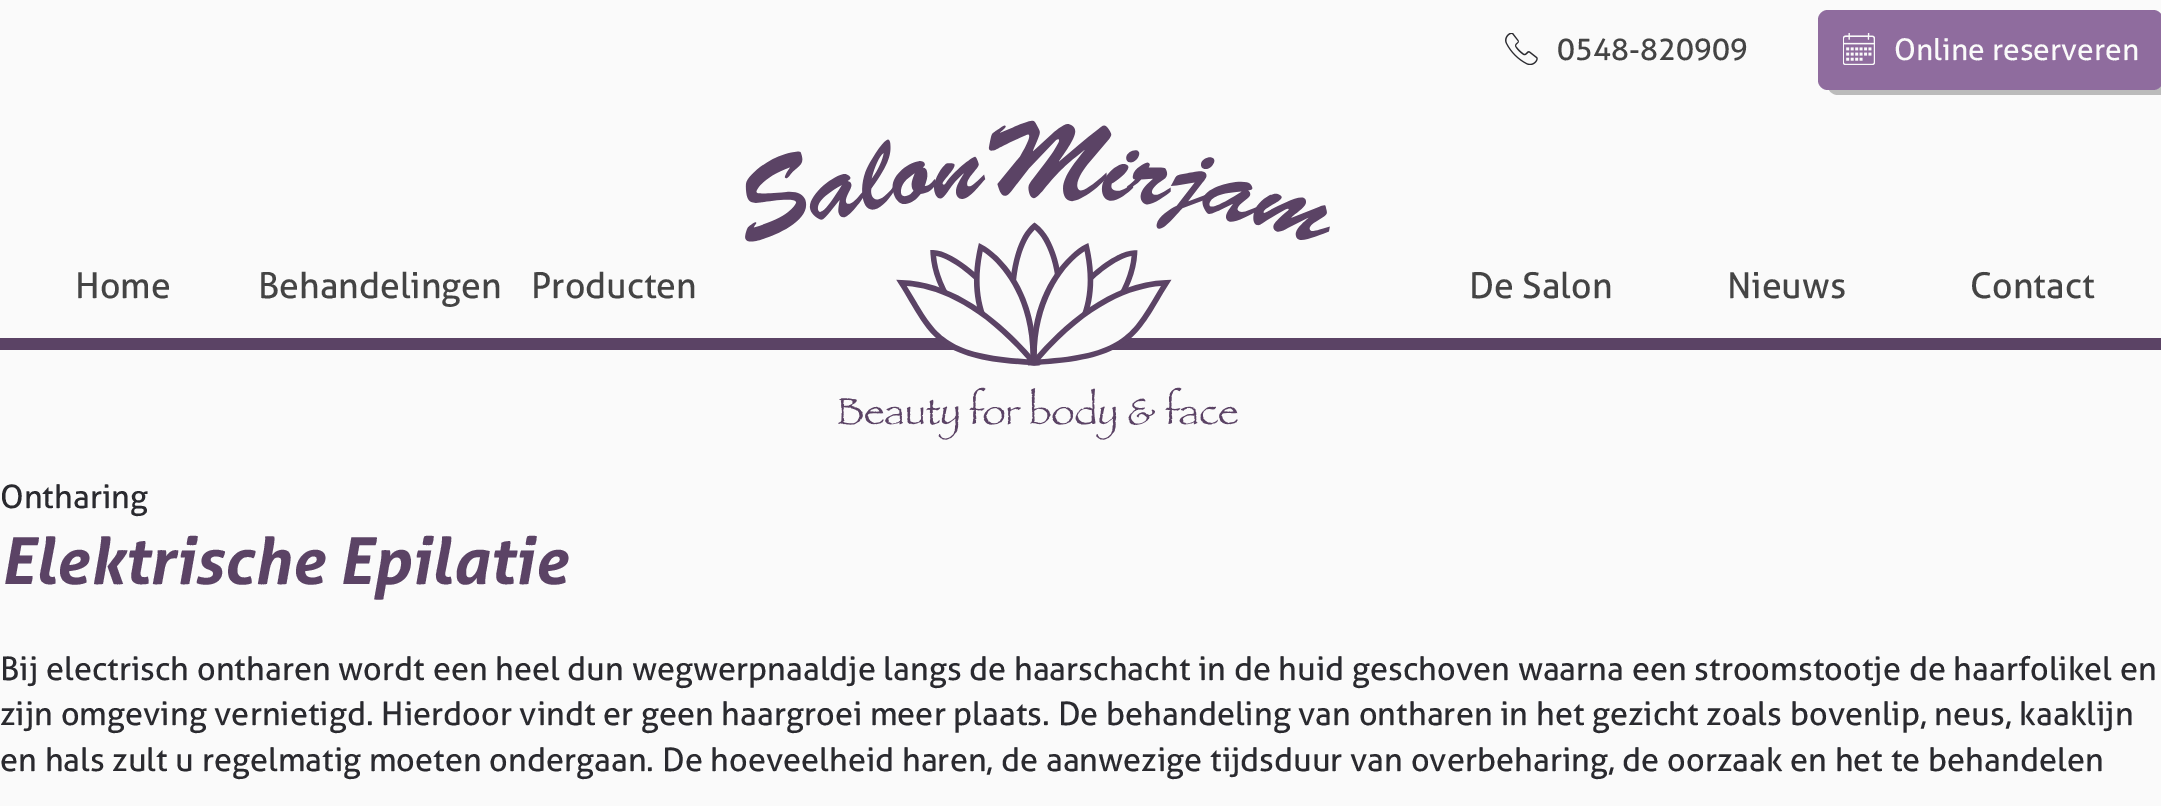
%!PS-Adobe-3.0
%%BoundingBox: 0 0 2161 806
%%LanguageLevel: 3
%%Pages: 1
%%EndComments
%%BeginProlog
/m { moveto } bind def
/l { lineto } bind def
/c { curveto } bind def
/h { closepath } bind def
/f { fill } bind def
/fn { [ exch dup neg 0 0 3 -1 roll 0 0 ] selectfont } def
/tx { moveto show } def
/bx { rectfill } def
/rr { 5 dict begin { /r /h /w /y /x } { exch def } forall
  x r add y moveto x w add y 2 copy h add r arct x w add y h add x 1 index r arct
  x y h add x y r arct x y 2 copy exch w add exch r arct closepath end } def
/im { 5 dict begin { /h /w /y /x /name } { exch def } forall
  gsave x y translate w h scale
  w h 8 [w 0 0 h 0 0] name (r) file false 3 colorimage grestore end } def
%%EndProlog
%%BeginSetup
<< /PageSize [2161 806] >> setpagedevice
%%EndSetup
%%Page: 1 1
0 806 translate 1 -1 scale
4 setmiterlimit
0.98 setgray
0 0 2161 806 bx
0.357 0.263 0.396 setrgbcolor
0 338 2161 12 bx
(image0.raw) 1505 33 33 32 im
/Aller-Regular 30 fn
0.267 setgray
(0548-820909) 1557 60 tx
0.733 setgray
1829 90 m 1831 93 1834 95 1838 95 c 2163 95 l 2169 95 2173 91 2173 85 c 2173 25 l 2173 19 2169 15 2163 15 c 2161 15 l 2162 16 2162 18 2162 20 c 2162 80 l 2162 86 2158 90 2152 90 c h f
0.561 0.424 0.62 setrgbcolor
1818 10 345 80 10 rr f
(image1.raw) 1843 33 32 32 im
0.98 setgray
(Online reserveren) 1894 60 tx
/Aller-Regular 35.75 fn
0.267 setgray
(Home) 75 298 tx
(Behandelingen) 258 298 tx
(Producten) 531 298 tx
(image2.raw) 745 120 585 320 im
(De Salon) 1469 298 tx
(Nieuws) 1727 298 tx
(Contact) 1970 298 tx
/Aller-Regular 32.5 fn
0.165 0.165 0.184 setrgbcolor
(Ontharing) 0 508 tx
/Aller-BoldItalic 65 fn
0.357 0.263 0.396 setrgbcolor
(Elektrische Epilatie) 0 584 tx
/Aller-Regular 32.5 fn
0.165 0.165 0.184 setrgbcolor
(Bij electrisch ontharen wordt een heel dun wegwerpnaaldje langs de haarschacht in de huid geschoven waarna een stroomstootje de haarfolikel en) 0 680 tx
(zijn omgeving vernietigd. Hierdoor vindt er geen haargroei meer plaats. De behandeling van ontharen in het gezicht zoals bovenlip, neus, kaaklijn) 0 725 tx
(en hals zult u regelmatig moeten ondergaan. De hoeveelheid haren, de aanwezige tijdsduur van overbeharing, de oorzaak en het te behandelen) 0 771 tx
showpage
%%EOF
